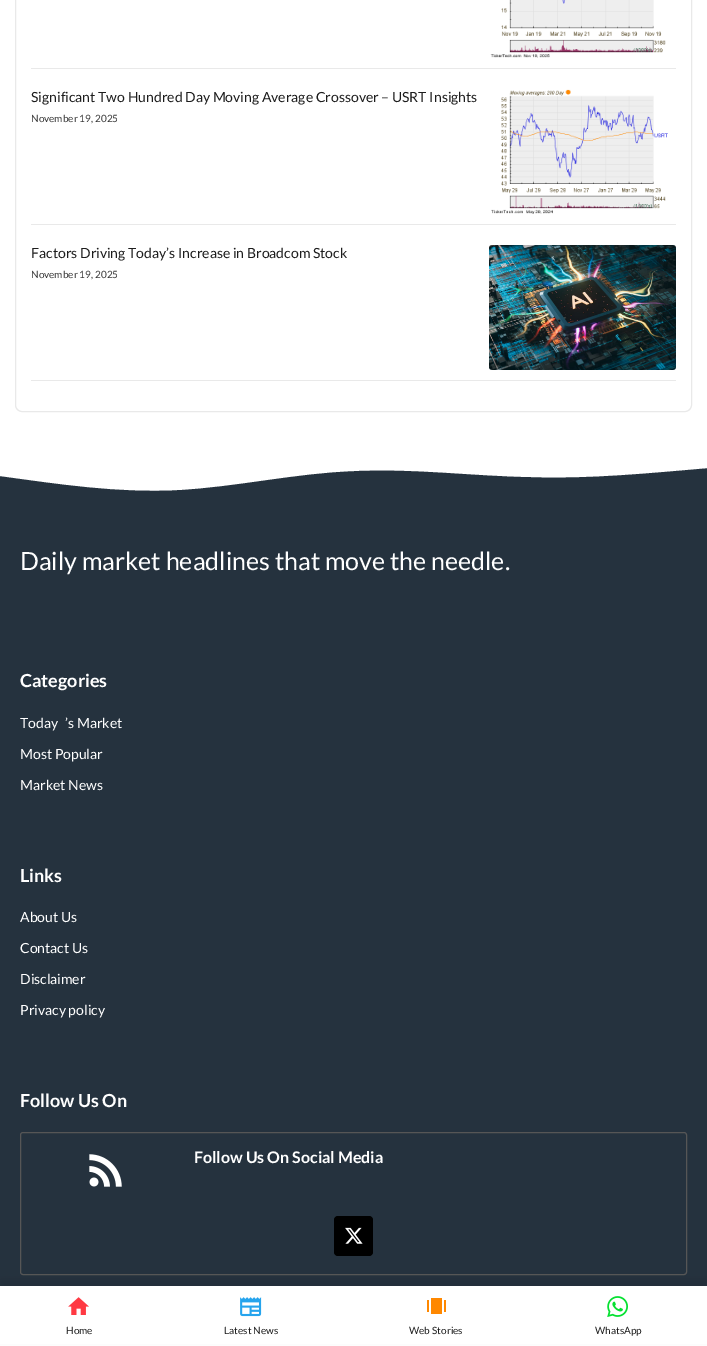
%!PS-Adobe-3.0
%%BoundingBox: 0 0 707 1346
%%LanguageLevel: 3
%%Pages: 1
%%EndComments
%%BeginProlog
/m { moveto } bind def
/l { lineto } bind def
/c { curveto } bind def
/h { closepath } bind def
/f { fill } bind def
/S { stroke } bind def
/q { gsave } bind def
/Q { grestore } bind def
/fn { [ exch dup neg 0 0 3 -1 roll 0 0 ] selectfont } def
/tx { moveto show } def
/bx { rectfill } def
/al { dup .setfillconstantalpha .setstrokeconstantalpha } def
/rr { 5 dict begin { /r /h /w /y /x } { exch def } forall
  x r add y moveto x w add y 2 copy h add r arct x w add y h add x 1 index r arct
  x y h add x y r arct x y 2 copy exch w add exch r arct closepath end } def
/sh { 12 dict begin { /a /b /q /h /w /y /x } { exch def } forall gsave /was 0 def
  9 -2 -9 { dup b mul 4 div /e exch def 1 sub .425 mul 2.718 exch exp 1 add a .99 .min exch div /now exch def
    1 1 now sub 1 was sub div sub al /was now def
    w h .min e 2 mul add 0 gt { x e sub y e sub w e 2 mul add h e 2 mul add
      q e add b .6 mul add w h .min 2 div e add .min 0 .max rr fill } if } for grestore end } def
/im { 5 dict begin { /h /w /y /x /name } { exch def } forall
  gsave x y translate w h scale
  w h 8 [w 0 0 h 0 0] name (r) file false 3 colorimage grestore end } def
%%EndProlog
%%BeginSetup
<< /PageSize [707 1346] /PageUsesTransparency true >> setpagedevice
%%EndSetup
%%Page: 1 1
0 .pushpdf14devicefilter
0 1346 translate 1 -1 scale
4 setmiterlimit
1 setgray
0 0 707 1346 bx
0.914 setgray
15.5 -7.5 676 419 6.5 rr S
31 68 645 1 bx
(image0.raw) 490 0 176 58 im
31 224 645 1 bx
/Lato-Regular 14 fn
0.114 setgray
(Significant Two Hundred Day Moving Average Crossover – USRT Insights) 31 102 tx
/Lato-Regular 10 fn
0.22 setgray
(November 19, 2025) 31 122 tx
(image1.raw) 491 89 177 125 im
0.914 setgray
31 380 645 1 bx
/Lato-Regular 14 fn
0.114 setgray
(Factors Driving Today’s Increase in Broadcom Stock) 31 258 tx
/Lato-Regular 10 fn
0.22 setgray
(November 19, 2025) 31 278 tx
(image2.raw) 489 245 187 125 im
0.145 0.196 0.243 setrgbcolor
0 468 707 818 bx
q
0 461 707 30 rectclip
1 setgray
0 460 m 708 460 l 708 468 l 649 473 590 479 531 477 c 472 476 413 468 354 471 c 295 473 236 487 177 490 c 117 493 59 484 0 476 c h f
Q
/Lato-Regular 25 fn
1 setgray
(Daily market headlines that move the needle.) 20 570 tx
/Lato-Bold 18 fn
(Categories) 20 687 tx
/Lato-Regular 14 fn
(Today) 20 728 tx
(’s Market) 65 728 tx
(Most Popular) 20 759 tx
(Market News) 20 790 tx
/Lato-Bold 18 fn
(Links) 20 882 tx
/Lato-Regular 14 fn
(About Us) 20 922 tx
(Contact Us) 20 953 tx
(Disclaimer) 20 984 tx
(Privacy policy) 20 1015 tx
/Lato-Bold 18 fn
(Follow Us On) 20 1107 tx
0.337 setgray
20.5 1132.5 666 142 2.5 rr S
(image3.raw) 89 1154 33 33 im
/Lato-Bold 16 fn
1 setgray
(Follow Us On Social Media) 194 1163 tx
0 setgray
334 1216 39 40 4 rr f
(image4.raw) 345 1227 18 17 im
0 1279 707 60 0 5 0.07 sh
1 setgray
0 1286 707 58 bx
(image5.raw) 68 1297 21 18 im
/Lato-Regular 10 fn
0.114 setgray
(Home) 66 1334 tx
(image6.raw) 240 1297 22 20 im
(Latest News) 224 1334 tx
1 0.533 0 setrgbcolor
427 1300 2 12 bx
431 1298 11 16 bx
444 1300 2 12 bx
0.114 setgray
(Web Stories) 409 1334 tx
(image7.raw) 607 1296 21 21 im
(WhatsApp) 595 1334 tx
.poppdf14devicefilter showpage
%%EOF
